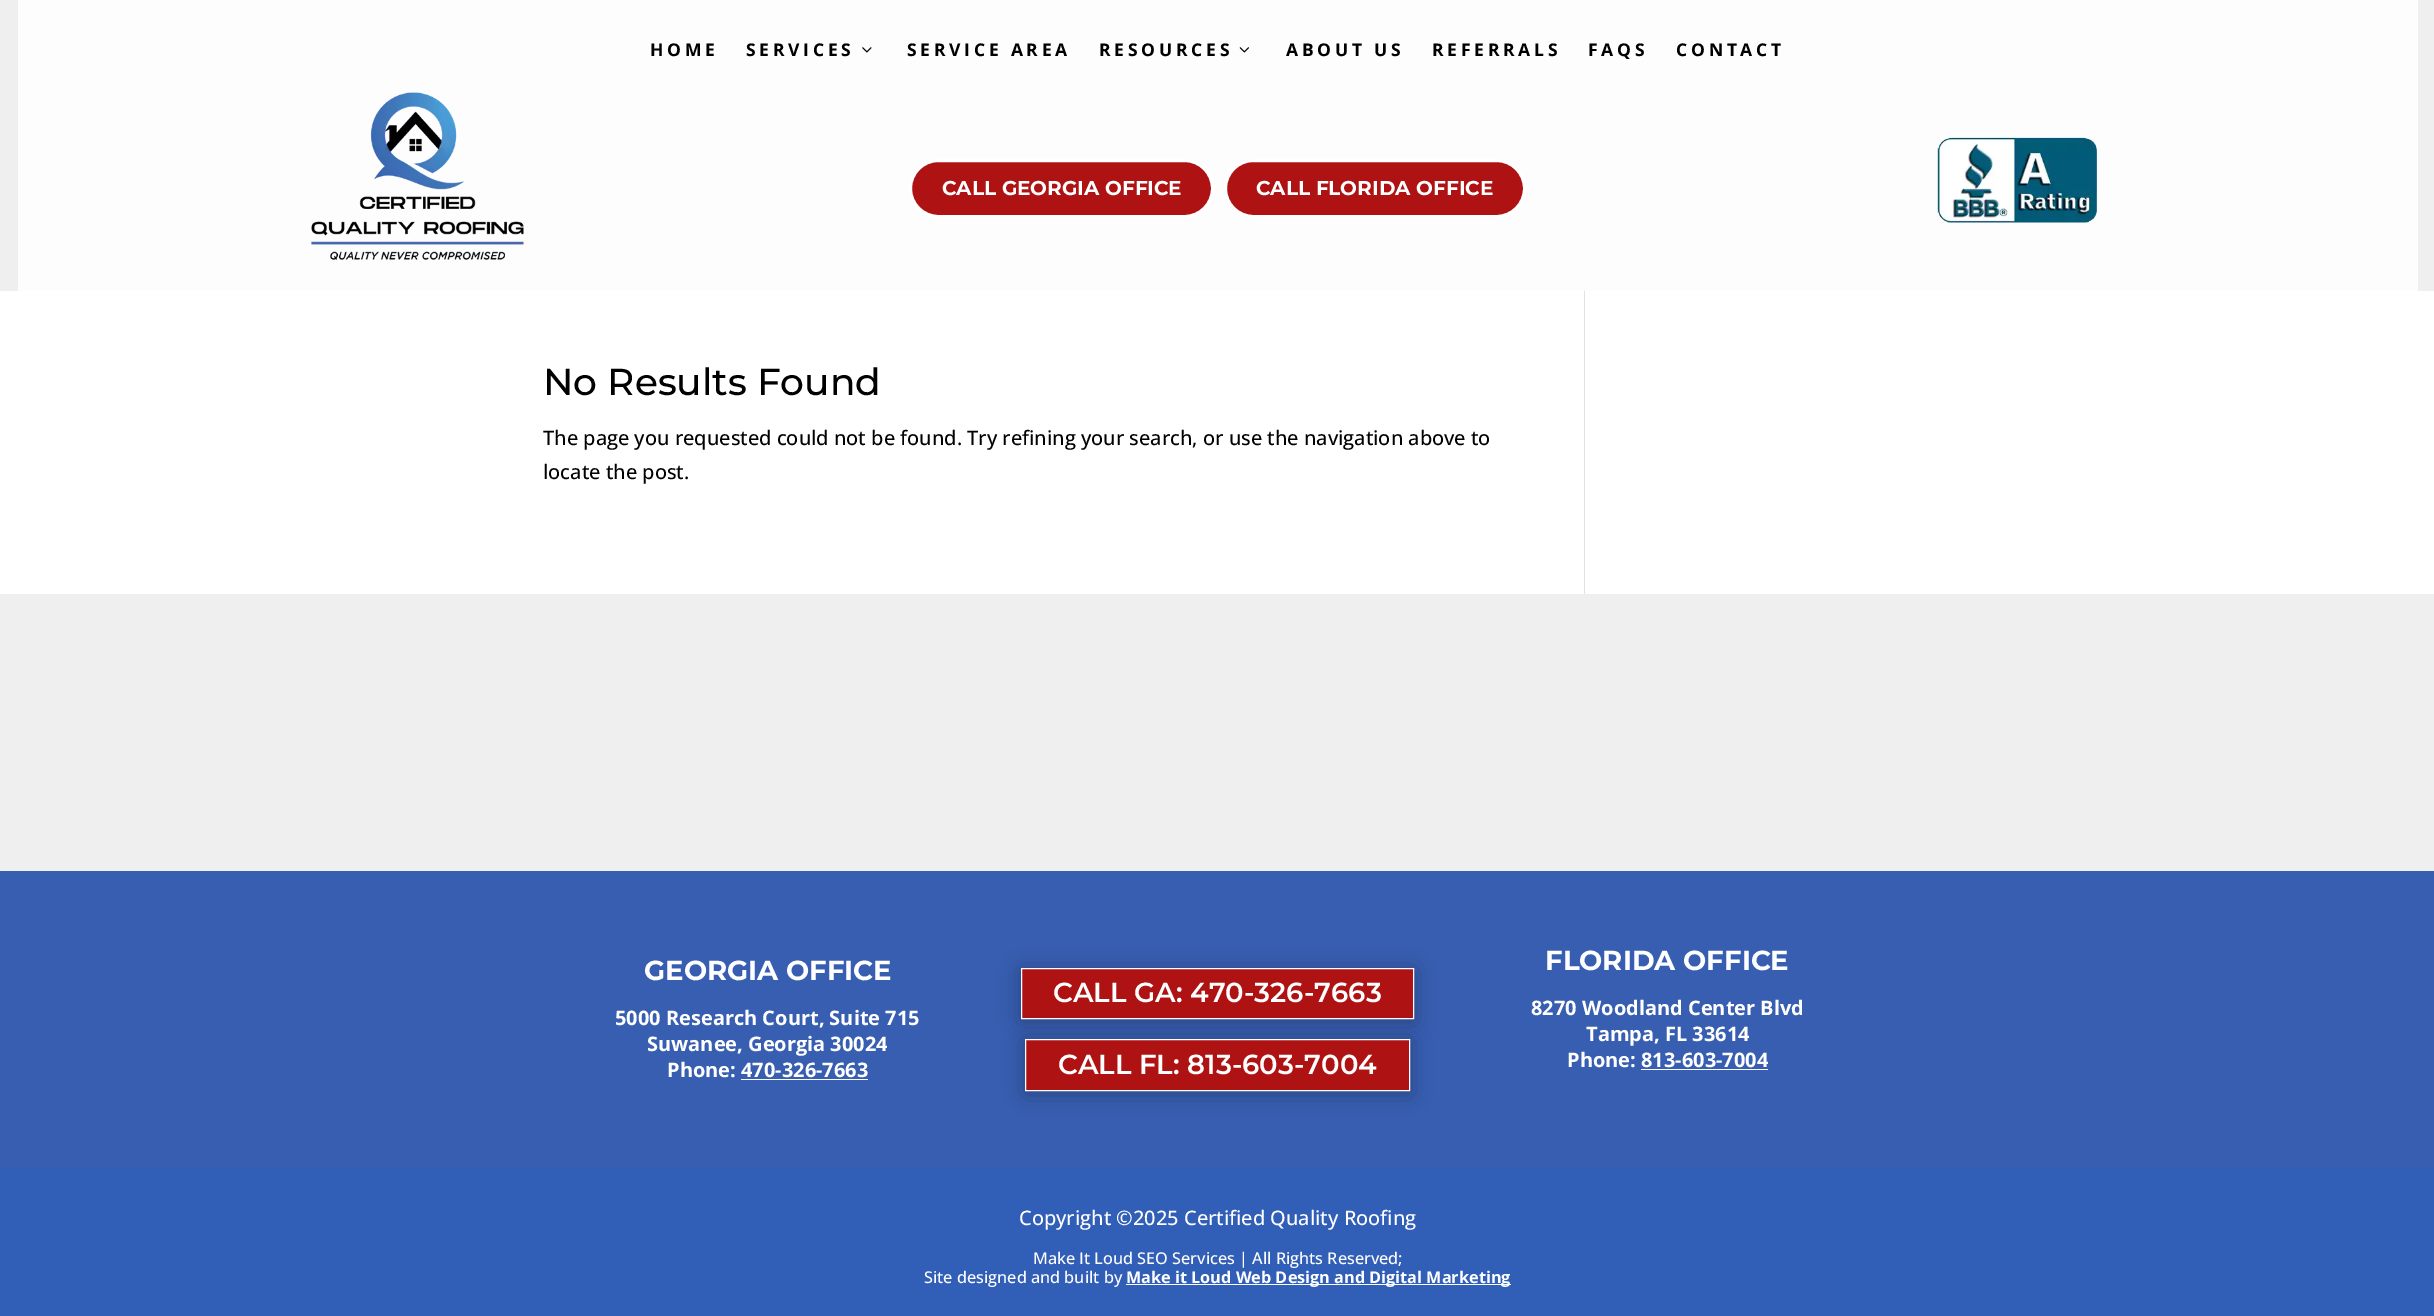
%!PS-Adobe-3.0
%%BoundingBox: 0 0 2434 1316
%%LanguageLevel: 3
%%Pages: 1
%%EndComments
%%BeginProlog
/m { moveto } bind def
/l { lineto } bind def
/h { closepath } bind def
/f { fill } bind def
/S { stroke } bind def
/q { gsave } bind def
/Q { grestore } bind def
/w { setlinewidth } bind def
/fn { [ exch dup neg 0 0 3 -1 roll 0 0 ] selectfont } def
/tx { moveto show } def
/bx { rectfill } def
/al { dup .setfillconstantalpha .setstrokeconstantalpha } def
/rr { 5 dict begin { /r /h /w /y /x } { exch def } forall
  x r add y moveto x w add y 2 copy h add r arct x w add y h add x 1 index r arct
  x y h add x y r arct x y 2 copy exch w add exch r arct closepath end } def
/sh { 12 dict begin { /a /b /q /h /w /y /x } { exch def } forall gsave /was 0 def
  9 -2 -9 { dup b mul 4 div /e exch def 1 sub .425 mul 2.718 exch exp 1 add a .99 .min exch div /now exch def
    1 1 now sub 1 was sub div sub al /was now def
    w h .min e 2 mul add 0 gt { x e sub y e sub w e 2 mul add h e 2 mul add
      q e add b .6 mul add w h .min 2 div e add .min 0 .max rr fill } if } for grestore end } def
/im { 5 dict begin { /h /w /y /x /name } { exch def } forall
  gsave x y translate w h scale
  w h 8 [w 0 0 h 0 0] name (r) file false 3 colorimage grestore end } def
%%EndProlog
%%BeginSetup
<< /PageSize [2434 1316] /PageUsesTransparency true >> setpagedevice
%%EndSetup
%%Page: 1 1
0 .pushpdf14devicefilter
0 1316 translate 1 -1 scale
4 setmiterlimit
0.937 setgray
0 0 2434 1316 bx
0.992 setgray
18 0 2400 291 bx
/OpenSans-Bold 17.5 fn
0 setgray
650 56 m 3.75 0 (HOME) ashow
746 56 m 3.75 0 (SERVICES) ashow
(image0.raw) 862 47 10 6 im
907 56 m 3.75 0 (SERVICE AREA) ashow
1099 56 m 3.75 0 (RESOURCES) ashow
(image1.raw) 1239 47 10 6 im
1286 56 m 3.75 0 (ABOUT US) ashow
1432 56 m 3.75 0 (REFERRALS) ashow
1588 56 m 3.75 0 (FAQS) ashow
1676 56 m 3.75 0 (CONTACT) ashow
(image2.raw) 311 92 213 168 im
0.682 0.071 0.071 setrgbcolor
910.5 160.5 302 56 28 rr q f Q
1 setgray
3 w
S
/Montserrat-Bold 20 fn
(CALL GEORGIA OFFICE) 942 195 tx
0.682 0.071 0.071 setrgbcolor
1225.5 160.5 299 56 28 rr q f Q
1 setgray
S
(CALL FLORIDA OFFICE) 1256 195 tx
(image3.raw) 1937 137 160 86 im
0 291 2434 303 bx
/Montserrat-Medium 37.5 fn
0 setgray
(No Results Found) 543 395 tx
/OpenSans-Medium 20 fn
(The page you requested could not be found. Try refining your search, or use the navigation above to) 543 445 tx
(locate the post.) 543 479 tx
0.886 setgray
1584 291 1 303 bx
0.216 0.369 0.694 setrgbcolor
0 871 2434 297 bx
/Montserrat-Bold 27.5 fn
1 setgray
(GEORGIA OFFICE) 644 980 tx
/OpenSans-Bold 20 fn
(5000 Research Court, Suite 715) 615 1025 tx
(Suwanee, Georgia 30024) 647 1051 tx
(Phone: 470-326-7663) 667 1077 tx
741 1079 127 1 bx
0 setgray
1021 970 393 51 0 11 0.3 sh
0.682 0.071 0.071 setrgbcolor
1021.5 968.5 m 1413.5 968.5 l 1413.5 1018.5 l 1021.5 1018.5 l h q f Q
1 setgray
1 w
S
/Montserrat-SemiBold 27.5 fn
(CALL GA: 470-326-7663) 1053 1002 tx
0 setgray
1025 1041 385 53 0 11 0.3 sh
0.682 0.071 0.071 setrgbcolor
1025.5 1039.5 m 1409.5 1039.5 l 1409.5 1090.5 l 1025.5 1090.5 l h q f Q
1 setgray
S
(CALL FL: 813-603-7004) 1058 1074 tx
/Montserrat-Bold 27.5 fn
(FLORIDA OFFICE) 1545 970 tx
/OpenSans-Bold 20 fn
(8270 Woodland Center Blvd) 1531 1015 tx
(Tampa, FL 33614) 1586 1041 tx
(Phone: 813-603-7004) 1567 1067 tx
1641 1069 127 1 bx
0.192 0.369 0.718 setrgbcolor
0 1168 2434 148 bx
/OpenSans-Medium 20 fn
1 setgray
(Copyright ©2025 Certified Quality Roofing) 1019 1225 tx
/OpenSans-Medium 16.25 fn
(Make It Loud SEO Services | All Rights Reserved;) 1033 1264 tx
(Site designed and built by) 924 1283 tx
1126 1284 385 1 bx
/OpenSans-Bold 16.25 fn
(Make it Loud Web Design and Digital Marketing) 1126 1283 tx
.poppdf14devicefilter showpage
%%EOF
